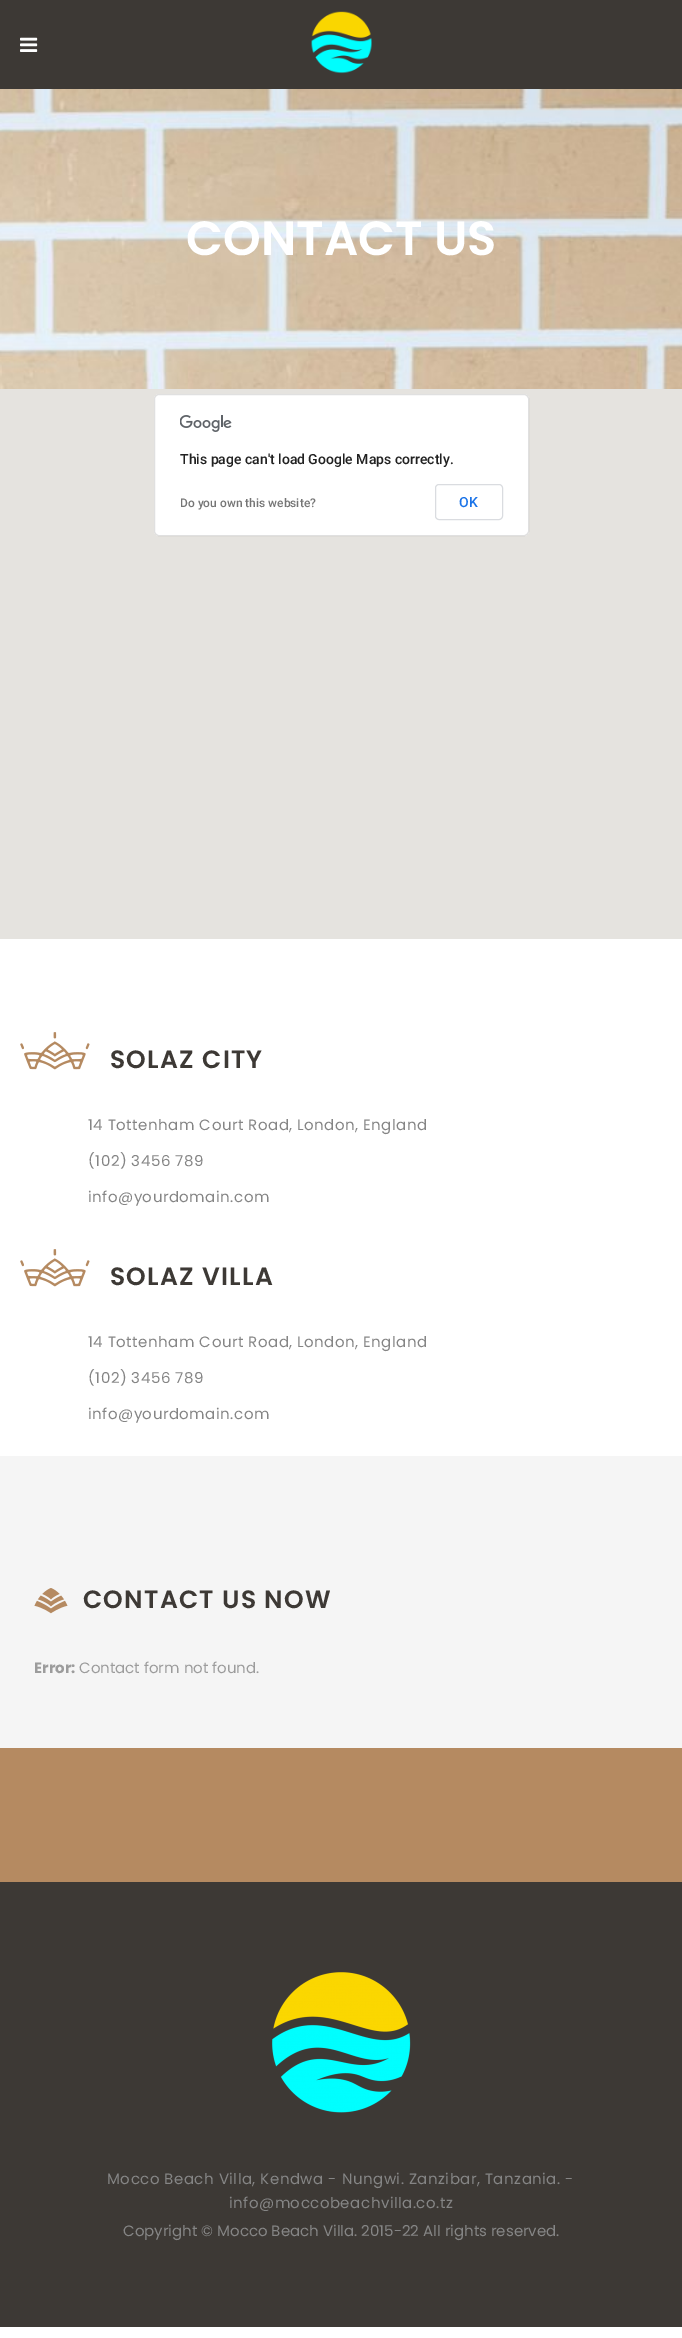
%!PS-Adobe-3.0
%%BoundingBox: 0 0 682 2338
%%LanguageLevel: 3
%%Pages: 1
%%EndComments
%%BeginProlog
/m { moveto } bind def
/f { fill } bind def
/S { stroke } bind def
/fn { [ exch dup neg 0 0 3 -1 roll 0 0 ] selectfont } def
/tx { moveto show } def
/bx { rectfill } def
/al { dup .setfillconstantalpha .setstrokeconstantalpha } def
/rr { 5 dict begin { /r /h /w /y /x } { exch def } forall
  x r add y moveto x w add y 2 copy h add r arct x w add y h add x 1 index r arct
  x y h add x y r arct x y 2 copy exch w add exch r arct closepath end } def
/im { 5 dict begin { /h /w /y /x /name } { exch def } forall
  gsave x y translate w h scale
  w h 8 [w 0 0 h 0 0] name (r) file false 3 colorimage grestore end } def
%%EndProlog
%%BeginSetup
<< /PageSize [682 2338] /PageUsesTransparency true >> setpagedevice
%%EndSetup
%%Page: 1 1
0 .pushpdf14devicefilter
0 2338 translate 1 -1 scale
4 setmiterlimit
1 setgray
0 0 682 2338 bx
0.239 0.224 0.208 setrgbcolor
0 0 682 89 bx
(image0.raw) 20 37 18 15 im
(image1.raw) 311 11 61 63 im
(image2.raw) 0 89 682 300 im
/Poppins-SemiBold 48 fn
1 setgray
(CONTACT US) 186 255 tx
0.898 0.89 0.875 setrgbcolor
0 389 682 550 bx
1 setgray
154 394 375 142 5 rr f
0.12 al
0 setgray
154.5 394.5 374 141 4.5 rr S
1 al
(image3.raw) 180 415 52 17 im
/Roboto-Medium 14 fn
0.129 setgray
(This page can't load Google Maps correctly.) 180 464 tx
/Roboto-Medium 12 fn
0.459 setgray
(Do you own this website?) 180 507 tx
0.855 0.863 0.878 setrgbcolor
435.5 484.5 67 35 3.5 rr S
/Roboto-Medium 14 fn
0.102 0.451 0.91 setrgbcolor
(OK) 459 507 tx
(image4.raw) 20 1032 70 38 im
/Poppins-SemiBold 25 fn
0.239 0.224 0.208 setrgbcolor
110 1068 m 1.25 0 (SOLAZ CITY) ashow
/Poppins-Regular 15 fn
0.522 setgray
88 1130 m 0.5 0 (14 Tottenham Court Road, London, England) ashow
88 1166 m 0.5 0 (\(102\) 3456 789) ashow
88 1202 m 0.5 0 (info@yourdomain.com) ashow
(image4.raw) 20 1249 70 38 im
/Poppins-SemiBold 25 fn
0.239 0.224 0.208 setrgbcolor
110 1285 m 1.25 0 (SOLAZ VILLA) ashow
/Poppins-Regular 15 fn
0.522 setgray
88 1347 m 0.5 0 (14 Tottenham Court Road, London, England) ashow
88 1383 m 0.5 0 (\(102\) 3456 789) ashow
88 1419 m 0.5 0 (info@yourdomain.com) ashow
0.961 setgray
0 1456 682 292 bx
(image5.raw) 34 1588 34 26 im
/Poppins-SemiBold 25 fn
0.239 0.224 0.208 setrgbcolor
83 1608 m 1.25 0 (CONTACT US NOW) ashow
/Poppins-Bold 15 fn
0.612 setgray
(Error:) 34 1673 tx
/Poppins-Regular 15 fn
(Contact form not found.) 79 1673 tx
0.71 0.541 0.38 setrgbcolor
0 1748 682 134 bx
0.239 0.224 0.208 setrgbcolor
0 1882 682 445 bx
(image6.raw) 272 1972 139 141 im
0.522 setgray
107 2184 m 0.5 0 (Mocco Beach Villa, Kendwa - Nungwi. Zanzibar, Tanzania. -) ashow
229 2208 m 0.5 0 (info@moccobeachvilla.co.tz) ashow
(Copyright © Mocco Beach Villa. 2015-22 All rights reserved.) 123 2236 tx
.poppdf14devicefilter showpage
%%EOF
